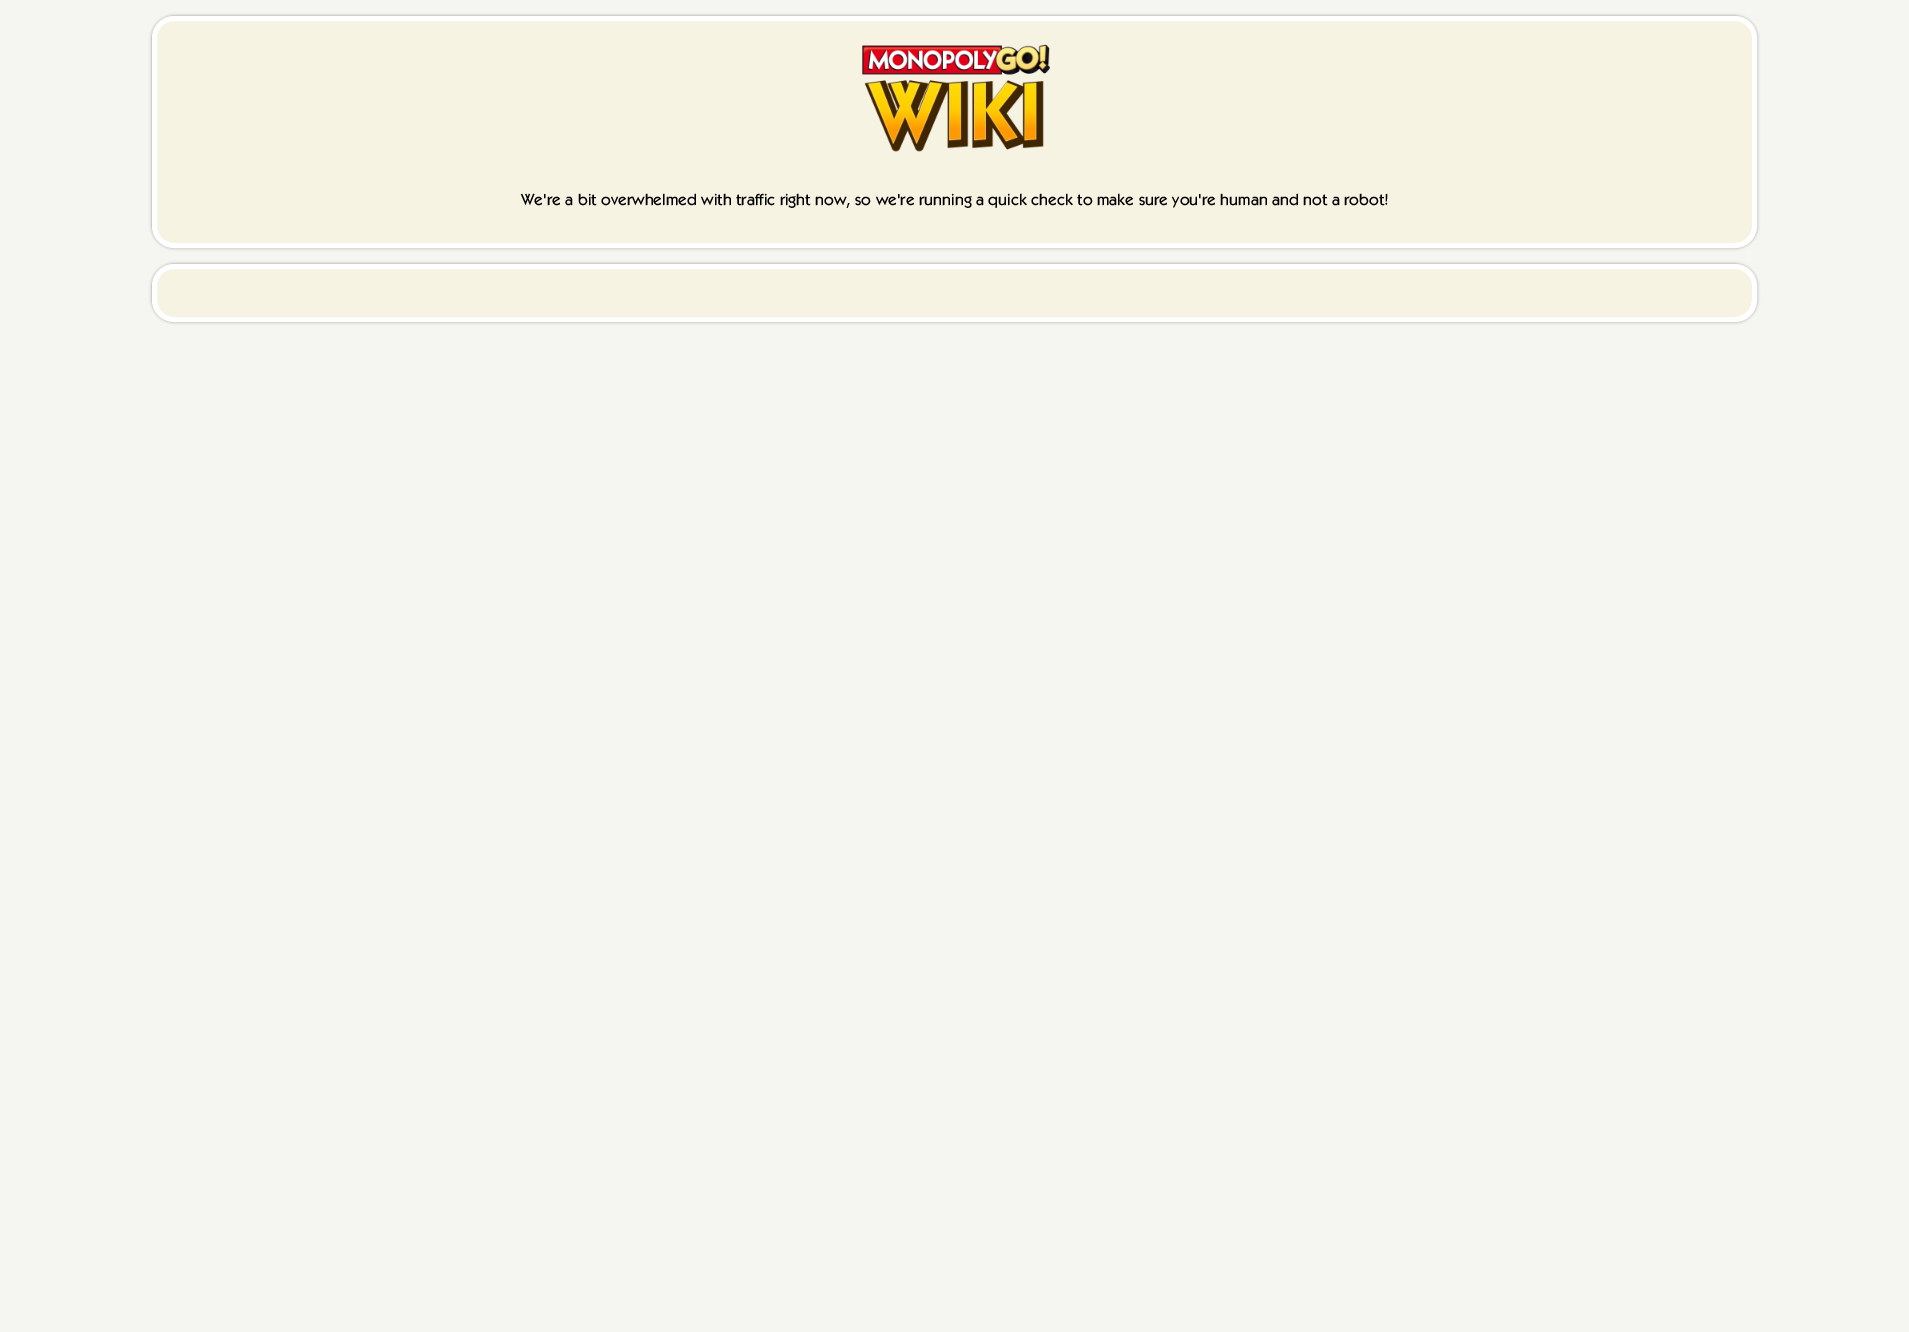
%!PS-Adobe-3.0
%%BoundingBox: 0 0 1909 1332
%%LanguageLevel: 3
%%Pages: 1
%%EndComments
%%BeginProlog
/f { fill } bind def
/S { stroke } bind def
/q { gsave } bind def
/Q { grestore } bind def
/w { setlinewidth } bind def
/fn { [ exch dup neg 0 0 3 -1 roll 0 0 ] selectfont } def
/tx { moveto show } def
/bx { rectfill } def
/al { dup .setfillconstantalpha .setstrokeconstantalpha } def
/rr { 5 dict begin { /r /h /w /y /x } { exch def } forall
  x r add y moveto x w add y 2 copy h add r arct x w add y h add x 1 index r arct
  x y h add x y r arct x y 2 copy exch w add exch r arct closepath end } def
/sh { 12 dict begin { /a /b /q /h /w /y /x } { exch def } forall gsave /was 0 def
  9 -2 -9 { dup b mul 4 div /e exch def 1 sub .425 mul 2.718 exch exp 1 add a .99 .min exch div /now exch def
    1 1 now sub 1 was sub div sub al /was now def
    w h .min e 2 mul add 0 gt { x e sub y e sub w e 2 mul add h e 2 mul add
      q e add b .6 mul add w h .min 2 div e add .min 0 .max rr fill } if } for grestore end } def
/im { 5 dict begin { /h /w /y /x /name } { exch def } forall
  gsave x y translate w h scale
  w h 8 [w 0 0 h 0 0] name (r) file false 3 colorimage grestore end } def
%%EndProlog
%%BeginSetup
<< /PageSize [1909 1332] /PageUsesTransparency true >> setpagedevice
%%EndSetup
%%Page: 1 1
0 .pushpdf14devicefilter
0 1332 translate 1 -1 scale
4 setmiterlimit
0.961 0.961 0.949 setrgbcolor
0 0 1909 1332 bx
0 setgray
152 16 1605 232 22 1.5 0.39 sh
0.965 0.953 0.89 setrgbcolor
154.5 18.5 1600 227 19.5 rr q f Q
1 setgray
5 w
S
(image0.raw) 862 44 188 108 im
/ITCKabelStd-Medium 16 fn
0 setgray
(We're a bit overwhelmed with traffic right now, so we're running a quick check to make sure you're human and not a robot!) 521 205 tx
152 264 1605 58 22 1.5 0.39 sh
0.965 0.953 0.89 setrgbcolor
154.5 266.5 1600 53 19.5 rr q f Q
1 setgray
S
.poppdf14devicefilter showpage
%%EOF
